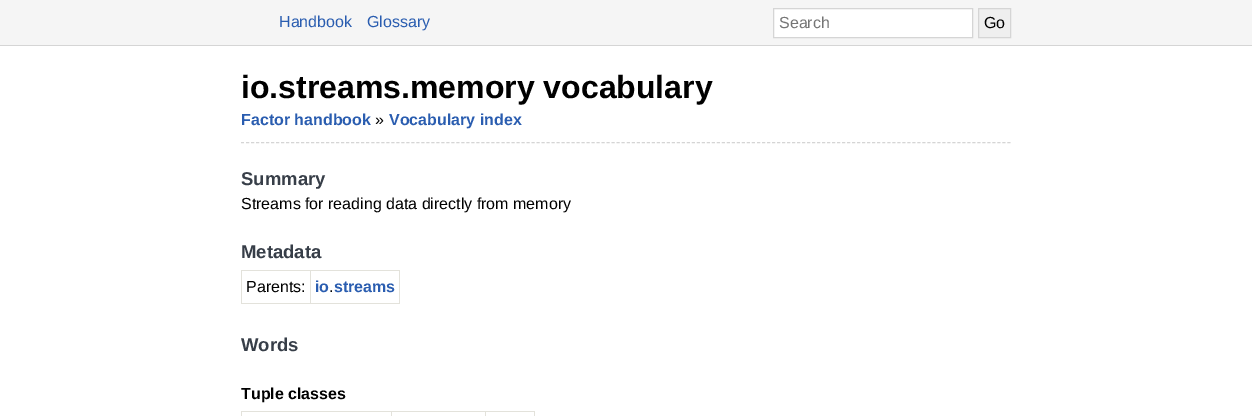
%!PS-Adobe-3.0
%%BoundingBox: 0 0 1252 416
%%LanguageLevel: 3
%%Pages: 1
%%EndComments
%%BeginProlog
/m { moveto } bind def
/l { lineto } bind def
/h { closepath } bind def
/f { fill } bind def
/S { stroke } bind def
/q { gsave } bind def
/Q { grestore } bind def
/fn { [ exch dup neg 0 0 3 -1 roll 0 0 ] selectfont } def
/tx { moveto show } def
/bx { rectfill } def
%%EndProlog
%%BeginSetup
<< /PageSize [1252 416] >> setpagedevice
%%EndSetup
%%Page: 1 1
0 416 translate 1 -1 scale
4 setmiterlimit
1 setgray
0 0 1252 416 bx
0.961 setgray
0 0 1252 45 bx
0.835 setgray
0 45 1252 1 bx
/LiberationSans-Regular 16 fn
0.165 0.365 0.69 setrgbcolor
(Handbook) 279 27 tx
(Glossary) 367 27 tx
1 setgray
773.5 8.5 m 972.5 8.5 l 972.5 37.5 l 773.5 37.5 l h q f Q
0.835 setgray
S
0.459 setgray
(Search) 779 28 tx
0.937 setgray
978.5 8.5 m 1010.5 8.5 l 1010.5 37.5 l 978.5 37.5 l h q f Q
0.835 setgray
S
0 setgray
(Go) 984 28 tx
0.835 setgray
[3 2.01] 0 setdash
241 142.5 m 1011 142.5 l S
/LiberationSans-Bold 32 fn
0 setgray
(io.streams.memory vocabulary) 241 98 tx
/LiberationSans-Bold 16 fn
0.165 0.365 0.69 setrgbcolor
(Factor handbook) 241 125 tx
/LiberationSans-Regular 16 fn
0 setgray
(») 375 125 tx
/LiberationSans-Bold 16 fn
0.165 0.365 0.69 setrgbcolor
(Vocabulary index) 389 125 tx
/LiberationSans-Bold 18.5 fn
0.216 0.243 0.282 setrgbcolor
(Summary) 241 185 tx
/LiberationSans-Regular 16 fn
0 setgray
(Streams for reading data directly from memory) 241 209 tx
/LiberationSans-Bold 18.5 fn
0.216 0.243 0.282 setrgbcolor
(Metadata) 241 258 tx
0.89 0.886 0.859 setrgbcolor
310 270 90 1 bx
399 270 1 34 bx
310 303 90 1 bx
310 270 1 34 bx
241 270 70 1 bx
241 303 70 1 bx
241 270 1 34 bx
/LiberationSans-Regular 16 fn
0 setgray
(Parents:) 246 292 tx
/LiberationSans-Bold 16 fn
0.165 0.365 0.69 setrgbcolor
(io streams) 315 292 tx
/LiberationSans-Regular 16 fn
0 setgray
(.) 329 292 tx
/LiberationSans-Bold 18.5 fn
0.216 0.243 0.282 setrgbcolor
(Words) 241 351 tx
/LiberationSans-Bold 16 fn
0 setgray
(Tuple classes) 241 399 tx
0.89 0.886 0.859 setrgbcolor
485 411 50 1 bx
485 411 1 5 bx
391 411 95 1 bx
391 411 1 5 bx
241 411 151 1 bx
241 411 1 5 bx
534 411 1 5 bx
showpage
%%EOF
